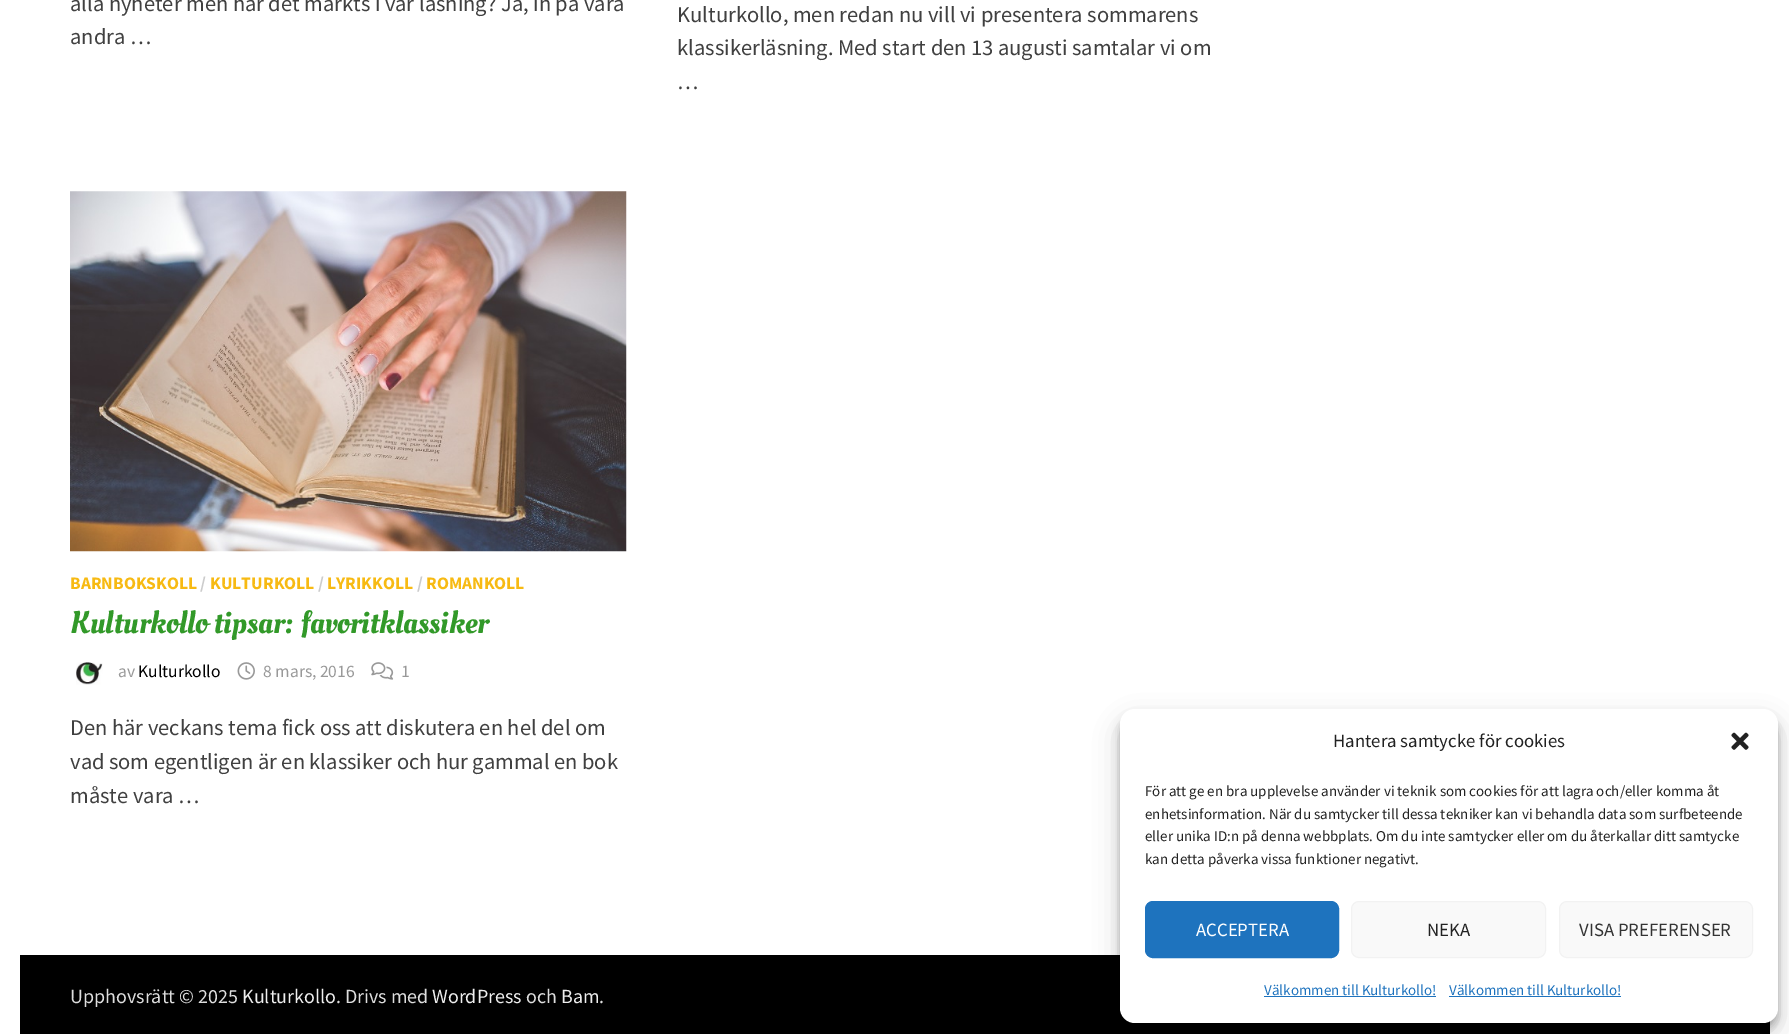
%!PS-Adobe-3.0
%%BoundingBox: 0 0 1789 1034
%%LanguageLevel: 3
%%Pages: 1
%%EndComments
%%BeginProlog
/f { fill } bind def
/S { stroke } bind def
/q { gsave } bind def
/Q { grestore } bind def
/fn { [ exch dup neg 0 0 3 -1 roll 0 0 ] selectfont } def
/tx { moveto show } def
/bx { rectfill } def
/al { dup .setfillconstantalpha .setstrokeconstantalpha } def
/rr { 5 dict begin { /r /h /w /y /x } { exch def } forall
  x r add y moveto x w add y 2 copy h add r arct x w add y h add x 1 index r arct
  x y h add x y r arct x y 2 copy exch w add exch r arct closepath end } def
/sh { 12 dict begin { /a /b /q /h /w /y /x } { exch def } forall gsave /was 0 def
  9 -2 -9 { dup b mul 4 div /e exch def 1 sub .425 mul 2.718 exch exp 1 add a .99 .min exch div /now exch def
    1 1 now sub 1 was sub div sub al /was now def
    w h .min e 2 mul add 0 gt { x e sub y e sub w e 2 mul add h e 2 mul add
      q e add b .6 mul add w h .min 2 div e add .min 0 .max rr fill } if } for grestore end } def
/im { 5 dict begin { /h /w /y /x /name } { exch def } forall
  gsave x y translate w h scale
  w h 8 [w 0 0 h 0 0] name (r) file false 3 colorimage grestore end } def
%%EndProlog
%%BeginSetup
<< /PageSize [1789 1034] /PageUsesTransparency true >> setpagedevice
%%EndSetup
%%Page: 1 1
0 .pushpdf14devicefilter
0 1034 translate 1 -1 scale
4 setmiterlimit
1 setgray
0 0 1789 1034 bx
/SourceSansPro-Regular 22.5 fn
0.251 setgray
(alla nyheter men har det märkts i vår läsning? Ja, in på våra) 70 11 tx
(andra …) 70 44 tx
(Kulturkollo, men redan nu vill vi presentera sommarens) 677 22 tx
(klassikerläsning. Med start den 13 augusti samtalar vi om) 677 55 tx
(…) 677 89 tx
(image0.raw) 70 191 557 361 im
/SourceSansPro-Bold 17.5 fn
0.969 0.729 0.075 setrgbcolor
(BARNBOKSKOLL) 70 589 tx
0.8 setgray
(/) 200 589 tx
0.969 0.729 0.075 setrgbcolor
(KULTURKOLL) 210 589 tx
0.8 setgray
(/) 318 589 tx
0.969 0.729 0.075 setrgbcolor
(LYRIKKOLL) 327 589 tx
0.8 setgray
(/) 417 589 tx
0.969 0.729 0.075 setrgbcolor
(ROMANKOLL) 426 589 tx
/OleoScript-Regular 31.25 fn
0.196 0.6 0.161 setrgbcolor
(Kulturkollo tipsar: favoritklassiker) 70 633 tx
(image1.raw) 76 662 27 23 im
/SourceSansPro-Regular 17.5 fn
0.6 setgray
(av) 118 677 tx
0 setgray
(Kulturkollo) 138 677 tx
(image2.raw) 237 662 18 18 im
0.6 setgray
(8 mars, 2016) 263 677 tx
(image3.raw) 371 662 23 18 im
(1) 401 677 tx
/SourceSansPro-Regular 22.5 fn
0.251 setgray
(Den här veckans tema fick oss att diskutera en hel del om) 70 735 tx
(vad som egentligen är en klassiker och hur gammal en bok) 70 769 tx
(måste vara …) 70 803 tx
0 setgray
20 955 1750 79 bx
/SourceSansPro-Regular 20 fn
0.867 setgray
(Upphovsrätt © 2025) 70 1003 tx
0.933 setgray
(Kulturkollo) 242 1003 tx
0.867 setgray
(. Drivs med) 336 1003 tx
0.933 setgray
(WordPress) 432 1003 tx
0.867 setgray
(och) 526 1003 tx
0.933 setgray
(Bam) 561 1003 tx
0.867 setgray
(.) 599 1003 tx
0 setgray
1120 716 658 314 15 4 0.23 sh
1120 721 658 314 15 12.5 0.19 sh
1 setgray
1120 709 658 314 15 rr f
/SourceSansPro-Regular 18.75 fn
0.133 setgray
(Hantera samtycke för cookies) 1333 747 tx
(image4.raw) 1731 732 18 18 im
/SourceSansPro-Regular 15 fn
(För att ge en bra upplevelse använder vi teknik som cookies för att lagra och/eller komma åt) 1145 796 tx
(enhetsinformation. När du samtycker till dessa tekniker kan vi behandla data som surfbeteende) 1145 819 tx
(eller unika ID:n på denna webbplats. Om du inte samtycker eller om du återkallar ditt samtycke) 1145 841 tx
(kan detta påverka vissa funktioner negativt.) 1145 864 tx
0.118 0.451 0.745 setrgbcolor
1145.5 901.5 193 56 7.5 rr q f Q
S
/SourceSansPro-Regular 18.75 fn
1 setgray
(ACCEPTERA) 1196 936 tx
0.976 setgray
1351.5 901.5 194 56 7.5 rr q f Q
0.949 setgray
S
0.133 setgray
(NEKA) 1427 936 tx
0.976 setgray
1559.5 901.5 193 56 7.5 rr q f Q
0.949 setgray
S
0.2 setgray
(VISA PREFERENSER) 1579 936 tx
/SourceSansPro-Regular 15 fn
0.118 0.451 0.745 setrgbcolor
(Välkommen till Kulturkollo!) 1264 995 tx
1264 996 172 1 bx
(Välkommen till Kulturkollo!) 1449 995 tx
1449 996 172 1 bx
.poppdf14devicefilter showpage
%%EOF
